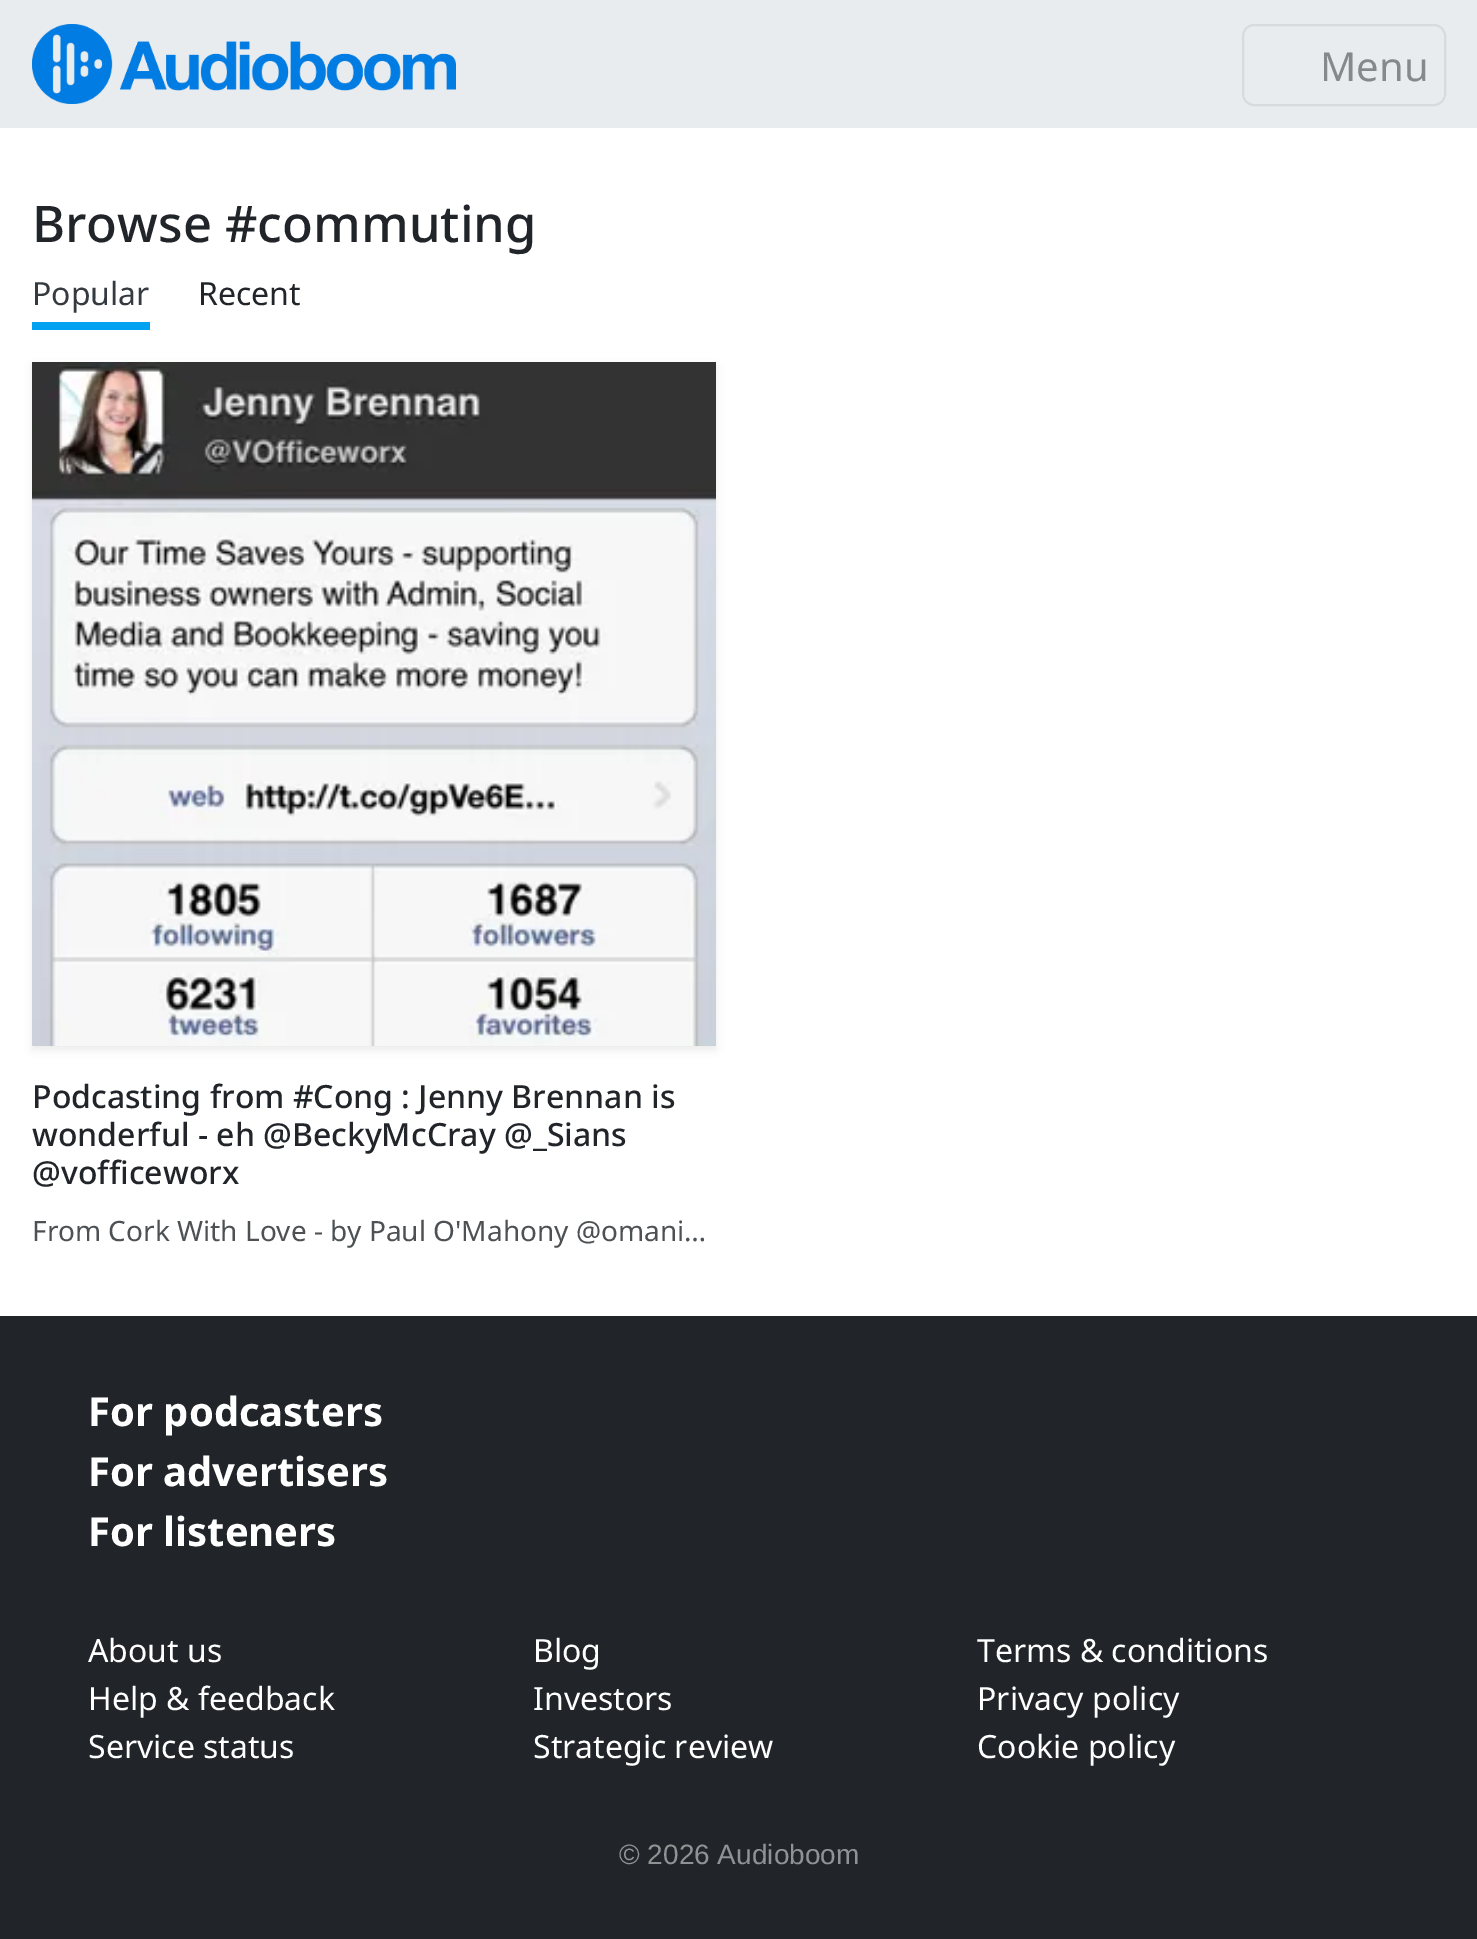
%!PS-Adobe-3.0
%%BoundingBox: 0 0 1477 1939
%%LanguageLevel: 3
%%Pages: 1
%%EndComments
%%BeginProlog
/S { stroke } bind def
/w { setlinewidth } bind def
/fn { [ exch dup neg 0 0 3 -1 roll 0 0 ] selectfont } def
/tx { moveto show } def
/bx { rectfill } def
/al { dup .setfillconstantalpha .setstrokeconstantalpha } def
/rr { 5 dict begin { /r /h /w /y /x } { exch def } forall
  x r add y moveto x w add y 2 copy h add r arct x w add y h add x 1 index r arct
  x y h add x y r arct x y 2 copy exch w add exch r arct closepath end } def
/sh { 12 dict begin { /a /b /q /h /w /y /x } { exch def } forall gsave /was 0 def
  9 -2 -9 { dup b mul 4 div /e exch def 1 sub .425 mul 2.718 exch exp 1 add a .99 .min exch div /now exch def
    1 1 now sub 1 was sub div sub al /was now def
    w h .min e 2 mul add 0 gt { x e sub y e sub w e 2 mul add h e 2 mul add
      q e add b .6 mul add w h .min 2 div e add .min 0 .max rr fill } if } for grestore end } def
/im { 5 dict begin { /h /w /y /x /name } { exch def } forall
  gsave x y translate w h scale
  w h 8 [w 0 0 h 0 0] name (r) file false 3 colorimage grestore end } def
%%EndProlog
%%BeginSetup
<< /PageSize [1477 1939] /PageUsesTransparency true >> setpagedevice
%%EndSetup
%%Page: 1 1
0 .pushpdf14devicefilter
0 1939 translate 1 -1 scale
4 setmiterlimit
1 setgray
0 0 1477 1939 bx
0.914 0.925 0.937 setrgbcolor
0 0 1477 128 bx
(image0.raw) 32 24 424 80 im
0.847 0.855 0.867 setrgbcolor
2 w
1243 25 202 80 11 rr S
/NotoSans-Regular 40 fn
0.522 0.537 0.549 setrgbcolor
(Menu) 1320 81 tx
/NotoSans-Medium 50.5 fn
0.129 0.145 0.161 setrgbcolor
(Browse #commuting) 32 242 tx
0 0.635 0.945 setrgbcolor
32 322 118 8 bx
/NotoSans-Regular 32 fn
0.204 0.227 0.251 setrgbcolor
(Popular) 32 305 tx
0.129 0.145 0.161 setrgbcolor
(Recent) 198 305 tx
0 setgray
32 366 684 684 0 4 0.07 sh
(image1.raw) 32 362 684 684 im
/NotoSans-Medium 32 fn
0.129 0.145 0.161 setrgbcolor
(Podcasting from #Cong : Jenny Brennan is) 32 1108 tx
(wonderful - eh @BeckyMcCray @_Sians) 32 1146 tx
(@vofficeworx) 32 1184 tx
/NotoSans-Regular 28 fn
0.302 0.318 0.329 setrgbcolor
(From Cork With Love - by Paul O'Mahony @omani…) 32 1241 tx
0.129 0.145 0.161 setrgbcolor
0 1318 1477 621 bx
-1 1317 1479 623 rectstroke
/NotoSans-Bold 40 fn
1 setgray
(For podcasters) 88 1426 tx
(For advertisers) 88 1486 tx
(For listeners) 88 1546 tx
/NotoSans-Regular 32 fn
(About us) 88 1662 tx
(Help & feedback) 88 1710 tx
(Service status) 88 1758 tx
(Blog) 533 1662 tx
(Investors) 533 1710 tx
(Strategic review) 533 1758 tx
(Terms & conditions) 977 1662 tx
(Privacy policy) 977 1710 tx
(Cookie policy) 977 1758 tx
/LiberationSans-Regular 28 fn
0.565 0.573 0.58 setrgbcolor
(© 2026 Audioboom) 619 1864 tx
.poppdf14devicefilter showpage
%%EOF
